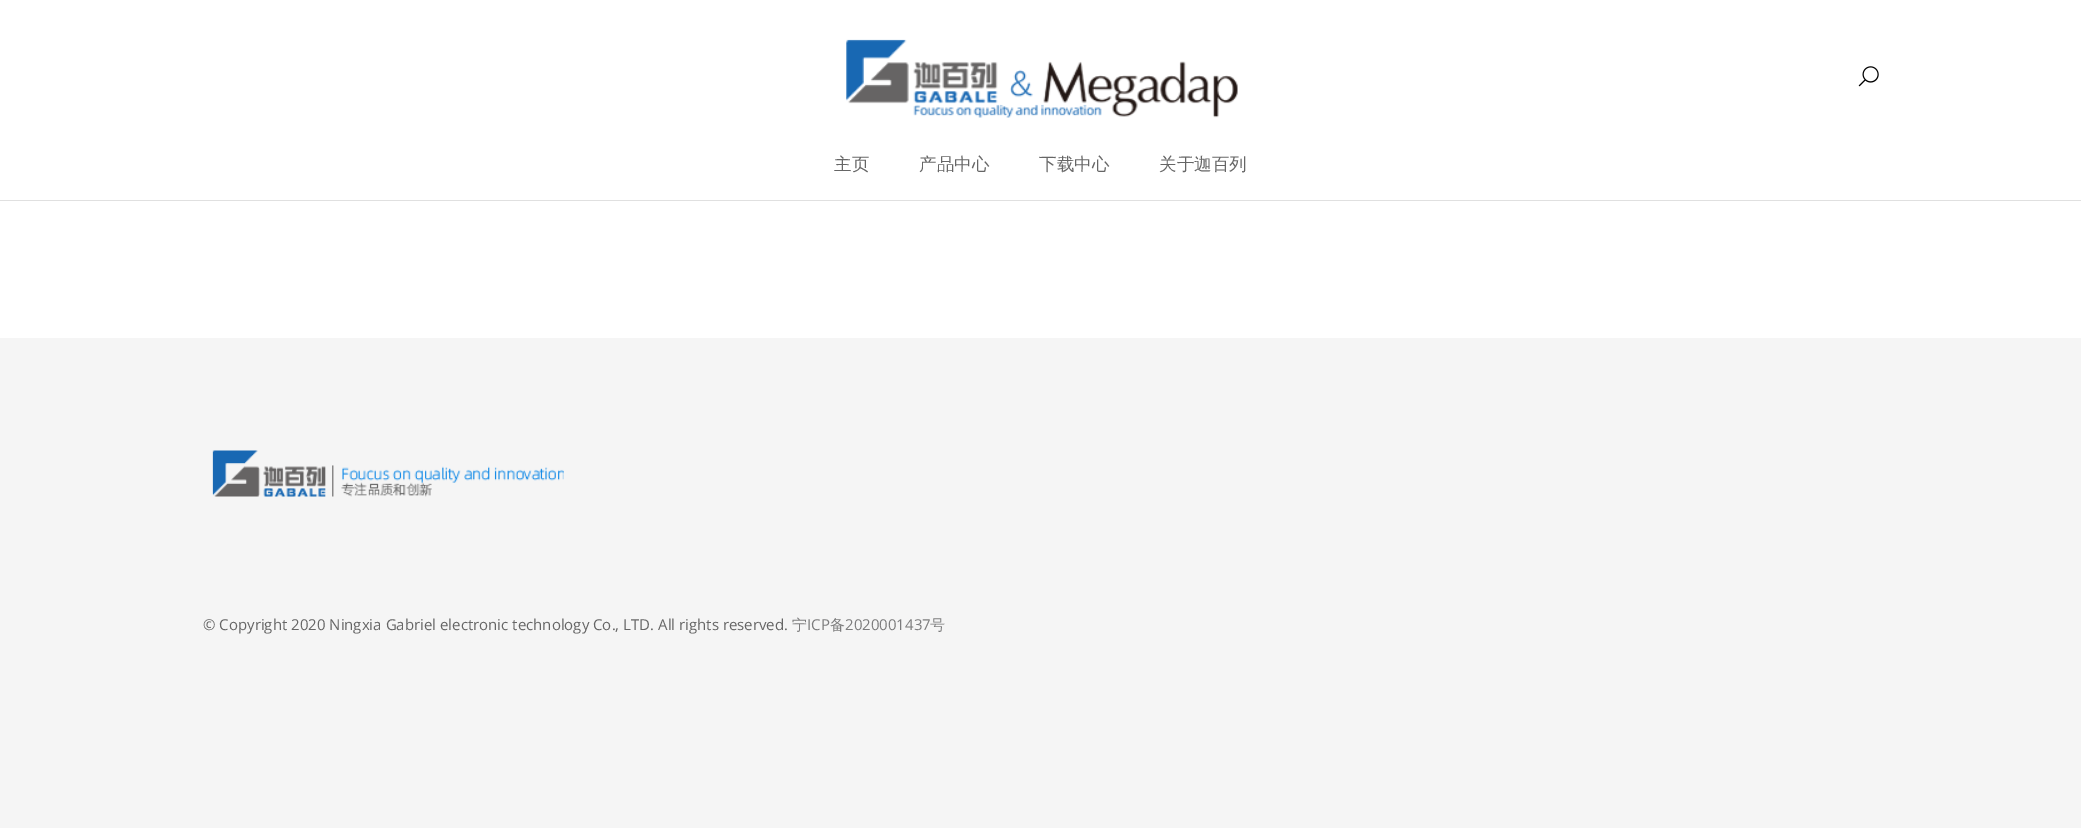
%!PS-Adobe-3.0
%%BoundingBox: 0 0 2081 828
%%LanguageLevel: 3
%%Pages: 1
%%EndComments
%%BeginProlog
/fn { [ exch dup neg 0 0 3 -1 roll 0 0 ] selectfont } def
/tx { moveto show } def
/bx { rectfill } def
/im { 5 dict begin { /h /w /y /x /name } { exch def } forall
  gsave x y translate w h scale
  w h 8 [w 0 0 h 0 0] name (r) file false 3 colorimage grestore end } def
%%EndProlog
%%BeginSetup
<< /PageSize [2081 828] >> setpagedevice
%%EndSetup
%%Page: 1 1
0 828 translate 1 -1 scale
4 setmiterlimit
0.961 setgray
0 0 2081 828 bx
1 setgray
0 0 2081 338 bx
0.878 setgray
0 200 2081 1 bx
(image0.raw) 846 39 392 79 im
(image1.raw) 1858 66 21 21 im
/WenQuanYiZenHei-Medium 17.5 fn
0.4 setgray
(主页) 834 170 tx
(产品中心) 919 170 tx
(下载中心) 1039 170 tx
(关于迦百列) 1159 170 tx
(image2.raw) 212 450 352 47 im
/OpenSans-Regular 15 fn
(© Copyright 2020 Ningxia Gabriel electronic technology Co., LTD. All rights reserved.) 203 630 tx
/WenQuanYiZenHei-Medium 15 fn
0.486 0.486 0.49 setrgbcolor
(宁) 792 630 tx
/OpenSans-Regular 15 fn
(ICP) 807 630 tx
/WenQuanYiZenHei-Medium 15 fn
(备) 830 630 tx
/OpenSans-Regular 15 fn
(2020001437) 845 630 tx
/WenQuanYiZenHei-Medium 15 fn
(号) 930 630 tx
showpage
%%EOF
